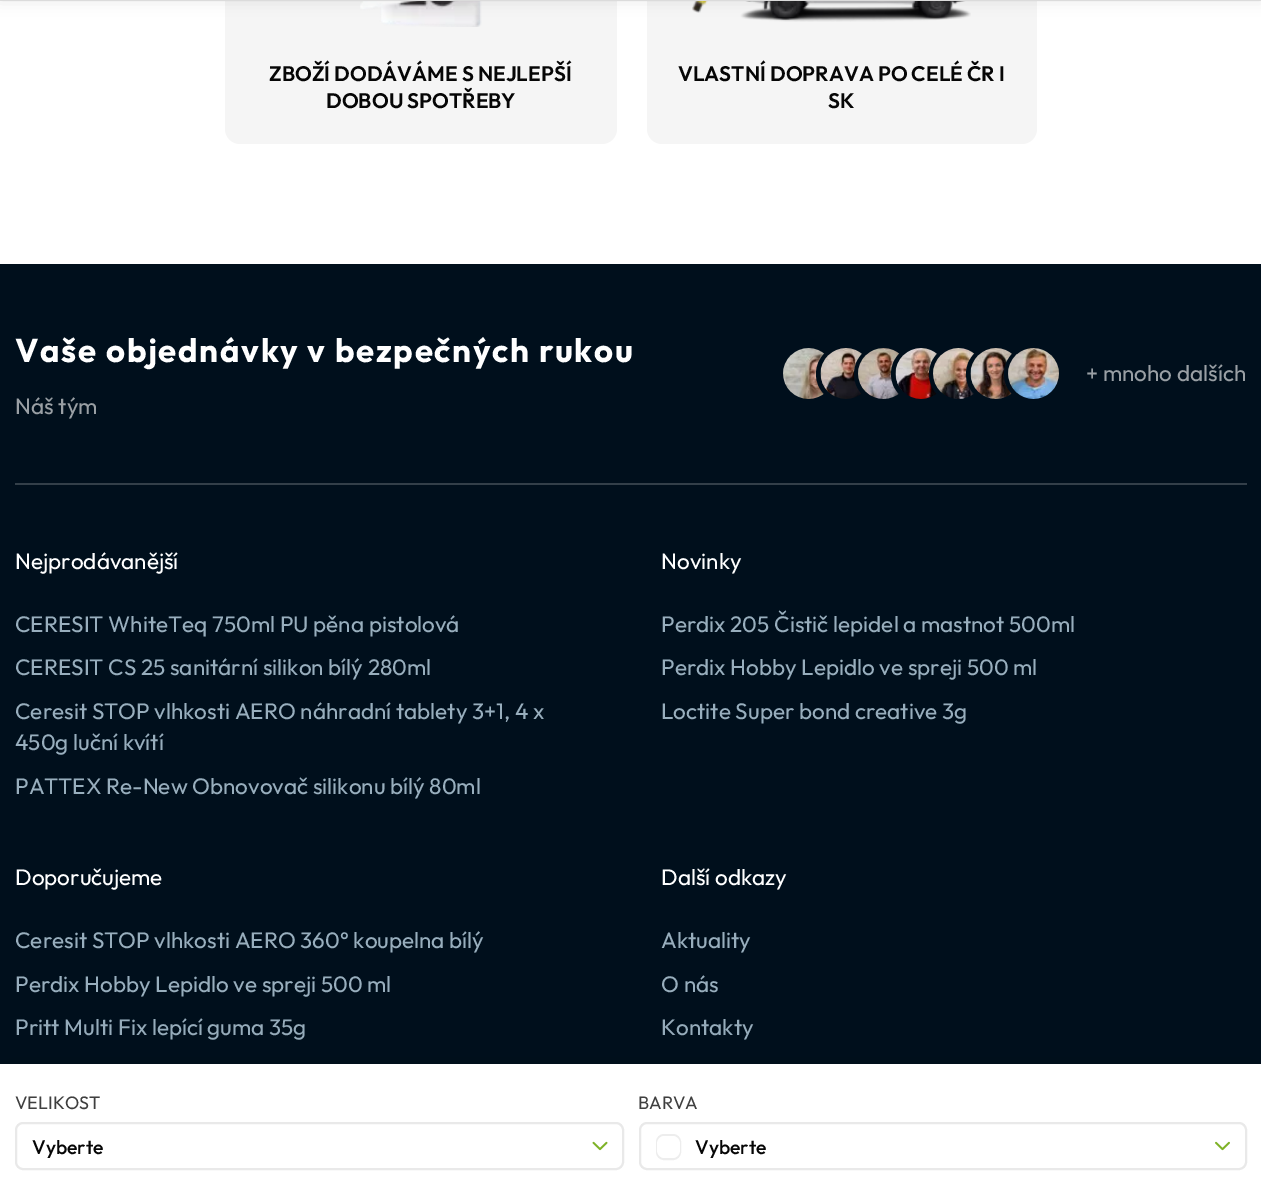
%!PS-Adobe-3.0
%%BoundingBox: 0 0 1261 1185
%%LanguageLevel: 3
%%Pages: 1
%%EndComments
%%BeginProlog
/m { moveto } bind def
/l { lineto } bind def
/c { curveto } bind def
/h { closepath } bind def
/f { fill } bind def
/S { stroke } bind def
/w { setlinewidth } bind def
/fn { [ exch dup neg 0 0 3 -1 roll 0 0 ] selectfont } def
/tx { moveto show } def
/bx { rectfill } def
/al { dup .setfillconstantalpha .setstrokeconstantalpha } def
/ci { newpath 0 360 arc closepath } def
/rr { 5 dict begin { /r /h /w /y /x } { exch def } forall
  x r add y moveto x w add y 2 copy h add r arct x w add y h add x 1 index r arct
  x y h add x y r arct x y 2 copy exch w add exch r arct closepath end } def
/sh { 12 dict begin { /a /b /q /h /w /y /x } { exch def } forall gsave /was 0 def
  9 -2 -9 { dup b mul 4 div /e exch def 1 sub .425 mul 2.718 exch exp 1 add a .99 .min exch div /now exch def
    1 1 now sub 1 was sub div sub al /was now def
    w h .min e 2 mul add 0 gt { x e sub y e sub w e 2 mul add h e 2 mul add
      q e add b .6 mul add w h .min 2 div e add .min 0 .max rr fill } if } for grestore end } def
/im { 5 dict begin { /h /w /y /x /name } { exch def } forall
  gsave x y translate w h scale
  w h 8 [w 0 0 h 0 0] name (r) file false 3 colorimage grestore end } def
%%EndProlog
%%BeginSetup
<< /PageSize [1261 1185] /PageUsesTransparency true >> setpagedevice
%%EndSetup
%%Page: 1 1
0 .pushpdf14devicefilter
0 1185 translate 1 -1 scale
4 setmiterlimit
1 setgray
0 0 1261 1185 bx
0.961 setgray
225 -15 392 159 15 rr f
647 -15 390 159 15 rr f
0.906 setgray
0 0 1261 1 bx
(image0.raw) 360 1 122 26 im
(image1.raw) 692 1 279 21 im
0 setgray
0 -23 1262 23 0 7.5 0.1 sh
/Outfit-SemiBold 21 fn
0.024 setgray
(ZBOŽÍ DODÁVÁME S NEJLEPŠÍ) 269 81 tx
(DOBOU SPOTŘEBY) 326 108 tx
(VLASTNÍ DOPRAVA PO CELÉ ČR I) 678 81 tx
(SK) 828 108 tx
0 0.059 0.11 setrgbcolor
0 264 1261 800 bx
0.2 0.247 0.286 setrgbcolor
15 483 1232 2 bx
/Outfit-Bold 33 fn
1 setgray
15 362 m 1.65 0 (Vaše objednávky v bezpečných rukou) ashow
/Outfit-Regular 22.5 fn
0.6 0.624 0.643 setrgbcolor
(Náš tým) 15 414 tx
(image2.raw) 783 348 45 51 im
0 0.059 0.11 setrgbcolor
5 w
846 374 27.5 ci S
(image3.raw) 820 348 45 51 im
884 374 27.5 ci S
(image4.raw) 858 348 45 51 im
921 374 27.5 ci S
(image5.raw) 895 348 45 51 im
959 374 27.5 ci S
(image6.raw) 933 348 45 51 im
996 374 27.5 ci S
(image7.raw) 970 348 45 51 im
1034 374 27.5 ci S
(image8.raw) 1008 348 51 51 im
0.6 0.624 0.643 setrgbcolor
(+ mnoho dalších) 1086 381 tx
1 setgray
(Nejprodávanější) 15 569 tx
0.596 0.682 0.741 setrgbcolor
(CERESIT WhiteTeq 750ml PU pěna pistolová) 15 632 tx
(CERESIT CS 25 sanitární silikon bílý 280ml) 15 675 tx
(Ceresit STOP vlhkosti AERO náhradní tablety 3+1, 4 x) 15 719 tx
(450g luční kvítí) 15 750 tx
(PATTEX Re-New Obnovovač silikonu bílý 80ml) 15 794 tx
1 setgray
(Novinky) 661 569 tx
0.596 0.682 0.741 setrgbcolor
(Perdix 205 Čistič lepidel a mastnot 500ml) 661 632 tx
(Perdix Hobby Lepidlo ve spreji 500 ml) 661 675 tx
(Loctite Super bond creative 3g) 661 719 tx
1 setgray
(Doporučujeme) 15 885 tx
0.596 0.682 0.741 setrgbcolor
(Ceresit STOP vlhkosti AERO 360° koupelna bílý) 15 948 tx
(Perdix Hobby Lepidlo ve spreji 500 ml) 15 992 tx
(Pritt Multi Fix lepící guma 35g) 15 1035 tx
1 setgray
(Další odkazy) 661 885 tx
0.596 0.682 0.741 setrgbcolor
(Aktuality) 661 948 tx
(O nás) 661 992 tx
(Kontakty) 661 1035 tx
0 setgray
0 1064 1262 121 0 30 0.1 sh
1 setgray
0 1064 1261 121 bx
/Outfit-Regular 18 fn
0.247 setgray
(VELIKOST) 15 1109 tx
0.914 setgray
2 w
16 1123 607 46 7 rr S
/Outfit-Medium 19.5 fn
0.024 setgray
(Vyberte) 32 1154 tx
(image9.raw) 592 1141 16 10 im
/Outfit-Regular 18 fn
0.247 setgray
(BARVA) 638 1109 tx
0.914 setgray
640 1123 606 46 7 rr S
0.929 setgray
657 1135 23 24 7 rr S
1 setgray
665 1136 m 672 1136 l 676.5 1136 680 1139.5 680 1144 c 680 1150 l 680 1154.5 676.5 1158 672 1158 c 665 1158 l 660.5 1158 657 1154.5 657 1150 c 657 1144 l 657 1139.5 660.5 1136 665 1136 c h f
/Outfit-Medium 19.5 fn
0.024 setgray
(Vyberte) 695 1154 tx
(image10.raw) 1215 1141 15 10 im
.poppdf14devicefilter showpage
%%EOF
